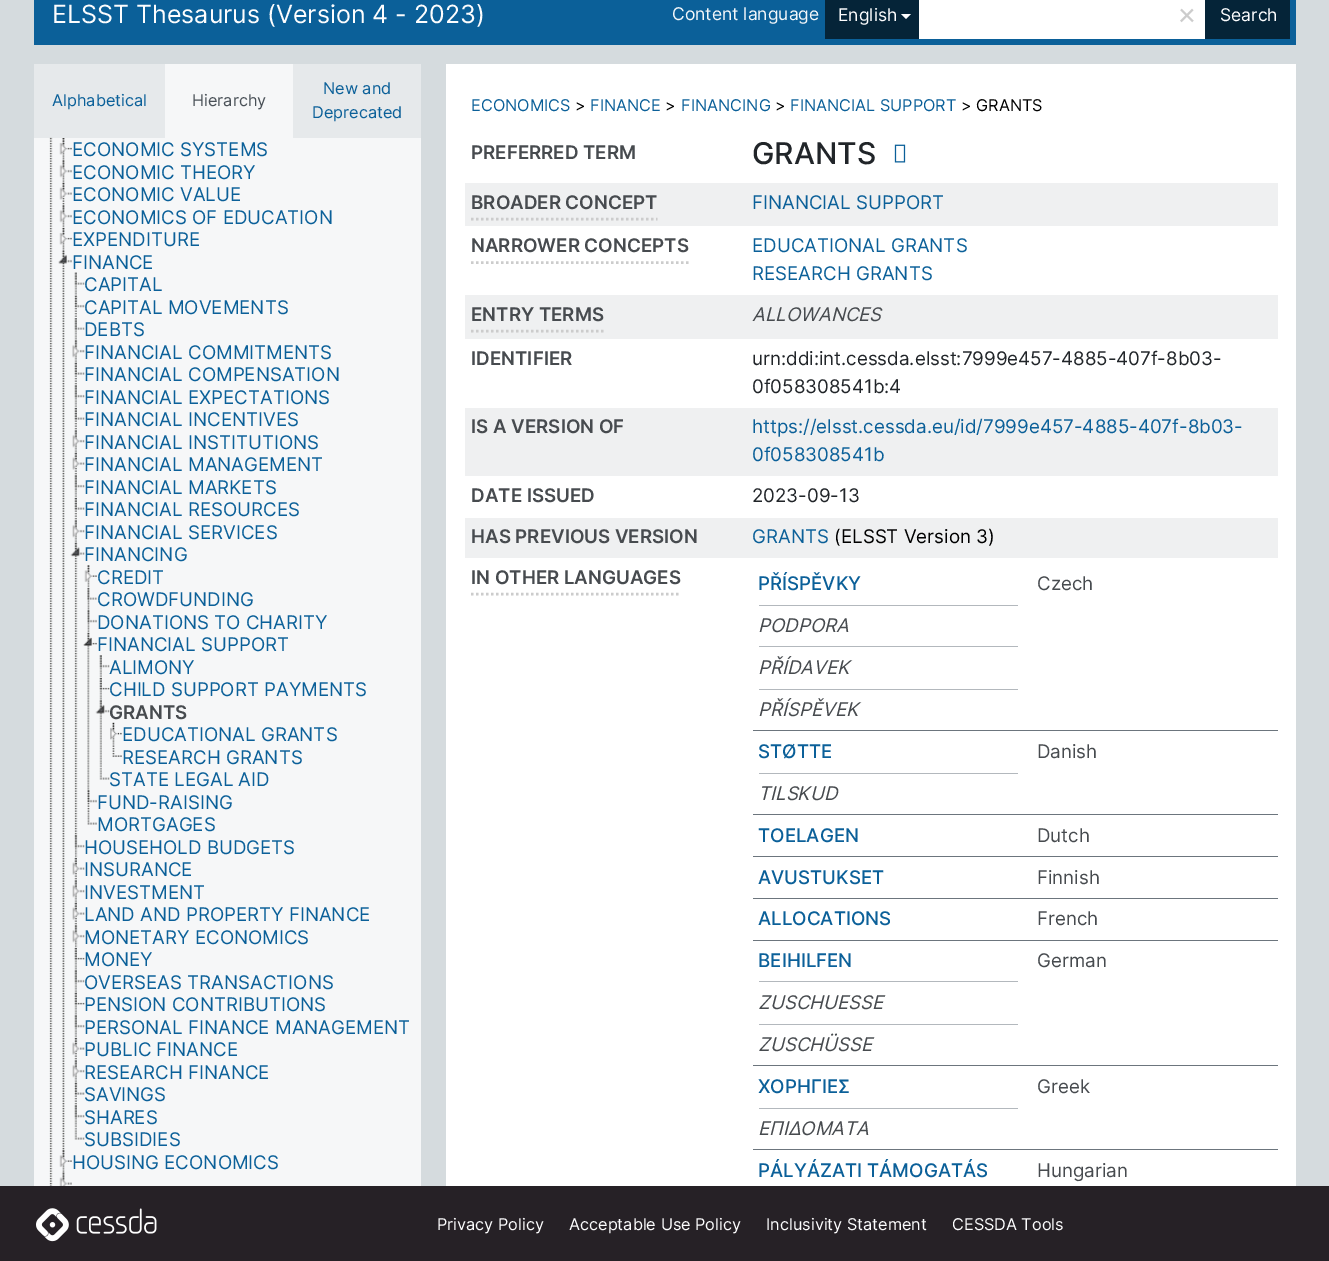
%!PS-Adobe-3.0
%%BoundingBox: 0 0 1329 1261
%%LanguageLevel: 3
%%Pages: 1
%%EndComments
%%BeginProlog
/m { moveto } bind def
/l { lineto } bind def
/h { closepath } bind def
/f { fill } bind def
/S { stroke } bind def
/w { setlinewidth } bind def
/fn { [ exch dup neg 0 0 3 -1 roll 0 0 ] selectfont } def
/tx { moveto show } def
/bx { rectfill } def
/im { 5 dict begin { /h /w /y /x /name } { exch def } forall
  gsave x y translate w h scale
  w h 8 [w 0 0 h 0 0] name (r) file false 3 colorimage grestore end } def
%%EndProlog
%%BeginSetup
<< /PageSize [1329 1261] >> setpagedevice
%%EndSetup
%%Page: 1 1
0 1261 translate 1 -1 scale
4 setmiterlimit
0.835 0.859 0.871 setrgbcolor
0 0 1329 1261 bx
0.043 0.376 0.6 setrgbcolor
34 0 1262 45 bx
/Inter-Regular 25 fn
0.992 0.992 0.996 setrgbcolor
(ELSST Thesaurus \(Version 4 - 2023\)) 52 23 tx
/Inter-Regular 17.5 fn
0.953 0.969 0.98 setrgbcolor
(Content language) 672 20 tx
0.02 0.141 0.22 setrgbcolor
825 0 94 39 bx
0.992 0.992 0.996 setrgbcolor
(English) 838 21 tx
1 setgray
901 14 m 911 14 l 906 19 l h f
919 0 286 39 bx
/Inter-Regular 30 fn
0.8 setgray
(×) 1177 24 tx
0.02 0.141 0.22 setrgbcolor
1205 0 85 39 bx
/Inter-Regular 17.5 fn
0.992 0.992 0.996 setrgbcolor
(Search) 1220 21 tx
0.902 0.914 0.922 setrgbcolor
34 64 131 74 bx
/Inter-Regular 16.25 fn
0.043 0.376 0.6 setrgbcolor
(Alphabetical) 52 106 tx
0.965 0.969 0.973 setrgbcolor
165 64 128 74 bx
0.286 0.314 0.341 setrgbcolor
(Hierarchy) 192 106 tx
0.902 0.914 0.922 setrgbcolor
293 64 128 74 bx
0.043 0.376 0.6 setrgbcolor
(New and) 323 94 tx
(Deprecated) 312 118 tx
0.965 0.969 0.973 setrgbcolor
34 138 387 1048 bx
(image0.raw) 49 137 4 1049 im
(image1.raw) 62 138 3 22 im
(image2.raw) 59 138 13 17 im
/Inter-Regular 18.75 fn
0.043 0.376 0.6 setrgbcolor
(ECONOMIC SYSTEMS) 72 156 tx
(image3.raw) 62 160 3 23 im
(image4.raw) 59 160 13 18 im
(ECONOMIC THEORY) 72 179 tx
(image5.raw) 62 183 3 22 im
(image6.raw) 59 182 13 18 im
(ECONOMIC VALUE) 72 201 tx
(image3.raw) 62 205 3 23 im
(image4.raw) 59 205 13 18 im
(ECONOMICS OF EDUCATION) 72 224 tx
(image7.raw) 62 228 3 22 im
(image8.raw) 59 228 13 17 im
(EXPENDITURE) 72 246 tx
(image9.raw) 62 250 3 901 im
(image10.raw) 58 250 14 14 im
(FINANCE) 72 269 tx
(image11.raw) 74 272 3 23 im
(image12.raw) 74 272 11 13 im
(CAPITAL) 84 291 tx
(image13.raw) 74 295 3 22 im
(image14.raw) 74 296 11 12 im
(CAPITAL MOVEMENTS) 84 314 tx
(image15.raw) 74 318 3 22 im
(image16.raw) 74 318 11 12 im
(DEBTS) 84 336 tx
(image17.raw) 74 340 3 23 im
(image18.raw) 72 340 13 18 im
(FINANCIAL COMMITMENTS) 84 359 tx
(image19.raw) 74 363 3 22 im
(image20.raw) 74 362 11 13 im
(FINANCIAL COMPENSATION) 84 381 tx
(image17.raw) 74 385 3 23 im
(image21.raw) 74 385 11 13 im
(FINANCIAL EXPECTATIONS) 84 404 tx
(image19.raw) 74 408 3 22 im
(image22.raw) 74 408 11 12 im
(FINANCIAL INCENTIVES) 84 426 tx
(image17.raw) 74 430 3 23 im
(image23.raw) 72 430 13 18 im
(FINANCIAL INSTITUTIONS) 84 449 tx
(image19.raw) 74 453 3 22 im
(image24.raw) 72 452 13 18 im
(FINANCIAL MANAGEMENT) 84 471 tx
(image25.raw) 74 475 3 23 im
(image21.raw) 74 475 11 13 im
(FINANCIAL MARKETS) 84 494 tx
(image19.raw) 74 498 3 22 im
(image22.raw) 74 498 11 12 im
(FINANCIAL RESOURCES) 84 516 tx
(image17.raw) 74 520 3 23 im
(image26.raw) 72 520 13 18 im
(FINANCIAL SERVICES) 84 539 tx
(image27.raw) 74 543 4 293 im
(image28.raw) 70 542 15 15 im
(FINANCING) 84 561 tx
(image29.raw) 87 565 3 23 im
(image30.raw) 84 565 13 17 im
(CREDIT) 97 584 tx
(image1.raw) 87 588 3 22 im
(image31.raw) 87 588 11 12 im
(CROWDFUNDING) 97 606 tx
(image3.raw) 87 610 3 23 im
(image32.raw) 87 610 10 13 im
(DONATIONS TO CHARITY) 97 629 tx
(image33.raw) 87 632 3 159 im
(image34.raw) 83 633 14 13 im
(FINANCIAL SUPPORT) 97 651 tx
(image17.raw) 99 655 3 23 im
(image21.raw) 99 655 11 13 im
(ALIMONY) 109 674 tx
(image15.raw) 99 678 3 22 im
(image35.raw) 99 678 11 12 im
(CHILD SUPPORT PAYMENTS) 109 696 tx
(image36.raw) 99 700 3 68 im
(image37.raw) 95 700 15 14 im
/Inter-SemiBold 18.75 fn
0.278 0.294 0.31 setrgbcolor
(GRANTS) 109 719 tx
(image38.raw) 112 722 3 23 im
(image39.raw) 110 723 12 17 im
/Inter-Regular 18.75 fn
0.043 0.376 0.6 setrgbcolor
(EDUCATIONAL GRANTS) 122 741 tx
(image40.raw) 112 745 10 12 im
(RESEARCH GRANTS) 122 764 tx
(image41.raw) 99 768 11 12 im
(STATE LEGAL AID) 109 786 tx
(image42.raw) 87 790 3 22 im
(image43.raw) 87 790 10 13 im
(FUND-RAISING) 97 809 tx
(image44.raw) 87 812 10 13 im
(MORTGAGES) 97 831 tx
(image45.raw) 74 835 4 23 im
(image46.raw) 74 835 11 13 im
(HOUSEHOLD BUDGETS) 84 854 tx
(image19.raw) 74 858 3 22 im
(image47.raw) 72 858 13 17 im
(INSURANCE) 84 876 tx
(image17.raw) 74 880 3 23 im
(image23.raw) 72 880 13 18 im
(INVESTMENT) 84 899 tx
(image19.raw) 74 903 3 22 im
(image24.raw) 72 902 13 18 im
(LAND AND PROPERTY FINANCE) 84 921 tx
(image48.raw) 74 925 4 23 im
(image49.raw) 72 925 13 18 im
(MONETARY ECONOMICS) 84 944 tx
(image15.raw) 74 948 3 22 im
(image35.raw) 74 948 11 12 im
(MONEY) 84 966 tx
(image17.raw) 74 970 3 23 im
(image21.raw) 74 970 11 13 im
(OVERSEAS TRANSACTIONS) 84 989 tx
(image50.raw) 74 992 3 23 im
(image51.raw) 74 993 11 12 im
(PENSION CONTRIBUTIONS) 84 1011 tx
(image17.raw) 74 1015 3 23 im
(image21.raw) 74 1015 11 13 im
(PERSONAL FINANCE MANAGEMENT) 84 1034 tx
(image19.raw) 74 1038 3 22 im
(image52.raw) 72 1038 13 17 im
(PUBLIC FINANCE) 84 1056 tx
(image17.raw) 74 1060 3 23 im
(image23.raw) 72 1060 13 18 im
(RESEARCH FINANCE) 84 1079 tx
(image19.raw) 74 1083 3 22 im
(image53.raw) 74 1082 11 13 im
(SAVINGS) 84 1101 tx
(image17.raw) 74 1105 3 23 im
(image21.raw) 74 1105 11 13 im
(SHARES) 84 1124 tx
(image41.raw) 74 1128 11 12 im
(SUBSIDIES) 84 1146 tx
(image54.raw) 62 1150 3 23 im
(image55.raw) 59 1150 13 17 im
(HOUSING ECONOMICS) 72 1169 tx
(image56.raw) 62 1172 3 14 im
(image57.raw) 59 1172 13 14 im
1 setgray
446 64 850 1122 bx
/Inter-Regular 16.25 fn
0.043 0.376 0.6 setrgbcolor
(ECONOMICS) 471 111 tx
0 setgray
(>) 575 111 tx
0.043 0.376 0.6 setrgbcolor
(FINANCE) 590 111 tx
0 setgray
(>) 665 111 tx
0.043 0.376 0.6 setrgbcolor
(FINANCING) 681 111 tx
0 setgray
(>) 775 111 tx
0.043 0.376 0.6 setrgbcolor
(FINANCIAL SUPPORT) 790 111 tx
0 setgray
(> GRANTS) 961 111 tx
/Inter-SemiBold 18.75 fn
0.278 0.294 0.31 setrgbcolor
(PREFERRED TERM) 471 159 tx
/Inter-Medium 30 fn
0.129 0.145 0.161 setrgbcolor
(GRANTS) 752 164 tx
(image58.raw) 894 144 12 19 im
0.937 0.941 0.945 setrgbcolor
465 183 813 43 bx
0.8 setgray
2.5 w
[2.5 2.5] 0 setdash
471 219 m 657.5 219 l S
/Inter-SemiBold 18.75 fn
0.278 0.294 0.31 setrgbcolor
(BROADER CONCEPT) 471 209 tx
/Inter-Regular 18.75 fn
0.043 0.376 0.6 setrgbcolor
(FINANCIAL SUPPORT) 752 209 tx
0.8 setgray
471 262.5 m 689 262.5 l S
/Inter-SemiBold 18.75 fn
0.278 0.294 0.31 setrgbcolor
(NARROWER CONCEPTS) 471 252 tx
/Inter-Regular 18.75 fn
0.043 0.376 0.6 setrgbcolor
(EDUCATIONAL GRANTS) 752 252 tx
(RESEARCH GRANTS) 752 280 tx
0.937 0.941 0.945 setrgbcolor
465 295 813 44 bx
0.8 setgray
471 331 m 604 331 l S
/Inter-SemiBold 18.75 fn
0.278 0.294 0.31 setrgbcolor
(ENTRY TERMS) 471 321 tx
/Inter-Italic 18.75 fn
(ALLOWANCES) 752 321 tx
/Inter-SemiBold 18.75 fn
(IDENTIFIER) 471 365 tx
/Inter-Regular 18.75 fn
0.129 0.145 0.161 setrgbcolor
(urn:ddi:int.cessda.elsst:7999e457-4885-407f-8b03-) 752 365 tx
(0f058308541b:4) 752 393 tx
0.937 0.941 0.945 setrgbcolor
465 408 813 68 bx
/Inter-SemiBold 18.75 fn
0.278 0.294 0.31 setrgbcolor
(IS A VERSION OF) 471 433 tx
/Inter-Regular 18.75 fn
0.043 0.376 0.6 setrgbcolor
(https://elsst.cessda.eu/id/7999e457-4885-407f-8b03-) 752 433 tx
(0f058308541b) 752 461 tx
/Inter-SemiBold 18.75 fn
0.278 0.294 0.31 setrgbcolor
(DATE ISSUED) 471 502 tx
/Inter-Regular 18.75 fn
0.129 0.145 0.161 setrgbcolor
(2023-09-13) 752 502 tx
0.937 0.941 0.945 setrgbcolor
465 518 813 40 bx
/Inter-SemiBold 18.75 fn
0.278 0.294 0.31 setrgbcolor
(HAS PREVIOUS VERSION) 471 543 tx
/Inter-Regular 18.75 fn
0.043 0.376 0.6 setrgbcolor
(GRANTS) 752 543 tx
0 setgray
(\(ELSST Version 3\)) 834 543 tx
0.8 setgray
471 594 m 681 594 l S
/Inter-SemiBold 18.75 fn
0.278 0.294 0.31 setrgbcolor
(IN OTHER LANGUAGES) 471 584 tx
/Inter-Medium 18.75 fn
0.043 0.376 0.6 setrgbcolor
(PŘÍSPĚVKY) 758 590 tx
/Inter-Regular 18.75 fn
0.278 0.294 0.31 setrgbcolor
(Czech) 1037 590 tx
0.702 0.722 0.741 setrgbcolor
759 605 259 1 bx
/Inter-Italic 18.75 fn
0.278 0.294 0.31 setrgbcolor
(PODPORA) 758 632 tx
0.702 0.722 0.741 setrgbcolor
759 646 259 1 bx
0.278 0.294 0.31 setrgbcolor
(PŘÍDAVEK) 758 674 tx
0.702 0.722 0.741 setrgbcolor
759 689 259 1 bx
0.278 0.294 0.31 setrgbcolor
(PŘÍSPĚVEK) 758 716 tx
0.424 0.459 0.49 setrgbcolor
753 730 525 1 bx
/Inter-Medium 18.75 fn
0.043 0.376 0.6 setrgbcolor
(STØTTE) 758 758 tx
/Inter-Regular 18.75 fn
0.278 0.294 0.31 setrgbcolor
(Danish) 1037 758 tx
0.702 0.722 0.741 setrgbcolor
759 773 259 1 bx
/Inter-Italic 18.75 fn
0.278 0.294 0.31 setrgbcolor
(TILSKUD) 758 800 tx
0.424 0.459 0.49 setrgbcolor
753 814 525 1 bx
/Inter-Medium 18.75 fn
0.043 0.376 0.6 setrgbcolor
(TOELAGEN) 758 842 tx
/Inter-Regular 18.75 fn
0.278 0.294 0.31 setrgbcolor
(Dutch) 1037 842 tx
0.424 0.459 0.49 setrgbcolor
753 856 525 1 bx
/Inter-Medium 18.75 fn
0.043 0.376 0.6 setrgbcolor
(AVUSTUKSET) 758 884 tx
/Inter-Regular 18.75 fn
0.278 0.294 0.31 setrgbcolor
(Finnish) 1037 884 tx
0.424 0.459 0.49 setrgbcolor
753 898 525 1 bx
/Inter-Medium 18.75 fn
0.043 0.376 0.6 setrgbcolor
(ALLOCATIONS) 758 925 tx
/Inter-Regular 18.75 fn
0.278 0.294 0.31 setrgbcolor
(French) 1037 925 tx
0.424 0.459 0.49 setrgbcolor
753 940 525 1 bx
/Inter-Medium 18.75 fn
0.043 0.376 0.6 setrgbcolor
(BEIHILFEN) 758 967 tx
/Inter-Regular 18.75 fn
0.278 0.294 0.31 setrgbcolor
(German) 1037 967 tx
0.702 0.722 0.741 setrgbcolor
759 981 259 1 bx
/Inter-Italic 18.75 fn
0.278 0.294 0.31 setrgbcolor
(ZUSCHUESSE) 758 1009 tx
0.702 0.722 0.741 setrgbcolor
759 1024 259 1 bx
0.278 0.294 0.31 setrgbcolor
(ZUSCHÜSSE) 758 1051 tx
0.424 0.459 0.49 setrgbcolor
753 1065 525 1 bx
/Inter-Medium 18.75 fn
0.043 0.376 0.6 setrgbcolor
(ΧΟΡΗΓΙΕΣ) 758 1093 tx
/Inter-Regular 18.75 fn
0.278 0.294 0.31 setrgbcolor
(Greek) 1037 1093 tx
0.702 0.722 0.741 setrgbcolor
759 1108 259 1 bx
/Inter-Italic 18.75 fn
0.278 0.294 0.31 setrgbcolor
(ΕΠΙΔΟΜΑΤΑ) 758 1135 tx
0.424 0.459 0.49 setrgbcolor
753 1149 525 1 bx
/Inter-Medium 18.75 fn
0.043 0.376 0.6 setrgbcolor
(PÁLYÁZATI TÁMOGATÁS) 758 1177 tx
/Inter-Regular 18.75 fn
0.278 0.294 0.31 setrgbcolor
(Hungarian) 1037 1177 tx
0.149 0.129 0.149 setrgbcolor
0 1186 1329 75 bx
(image59.raw) 36 1208 121 34 im
/Inter-Regular 16.25 fn
0.992 0.992 0.996 setrgbcolor
(Privacy Policy) 437 1230 tx
(Acceptable Use Policy) 569 1230 tx
(Inclusivity Statement) 766 1230 tx
(CESSDA Tools) 952 1230 tx
showpage
%%EOF
